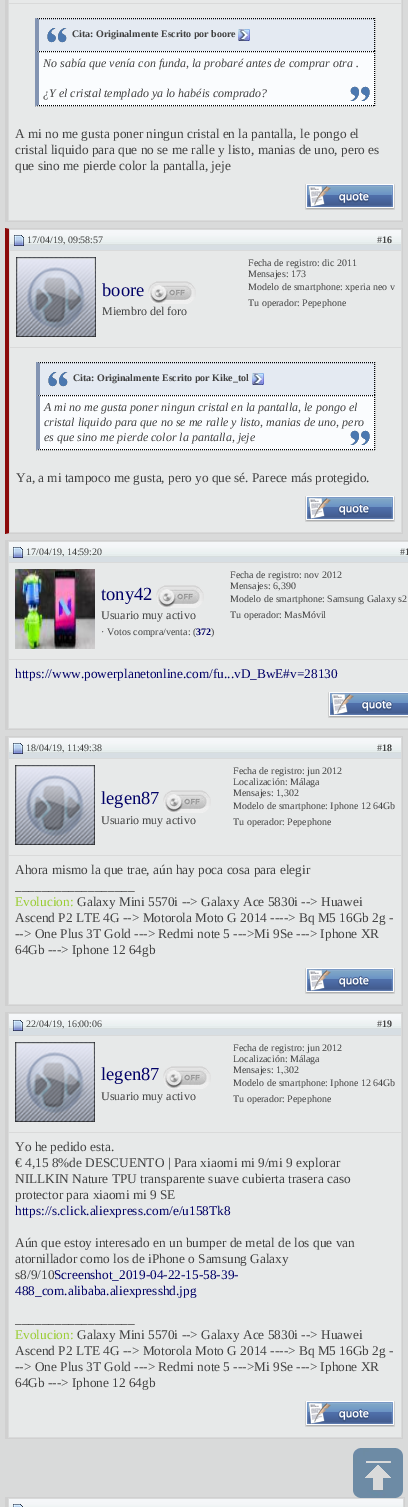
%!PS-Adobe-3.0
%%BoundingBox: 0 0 408 1507
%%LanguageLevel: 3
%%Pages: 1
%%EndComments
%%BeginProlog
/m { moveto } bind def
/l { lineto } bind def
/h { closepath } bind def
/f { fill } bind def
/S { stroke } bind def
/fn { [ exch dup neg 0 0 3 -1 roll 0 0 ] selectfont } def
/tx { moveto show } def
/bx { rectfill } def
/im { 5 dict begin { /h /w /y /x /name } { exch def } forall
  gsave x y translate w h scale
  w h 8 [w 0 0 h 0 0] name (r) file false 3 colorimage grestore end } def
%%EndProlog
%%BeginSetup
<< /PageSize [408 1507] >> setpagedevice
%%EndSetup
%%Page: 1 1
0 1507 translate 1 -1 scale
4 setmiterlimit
0.851 0.855 0.855 setrgbcolor
0 0 408 1507 bx
0.816 setgray
402 0 1 222 bx
5 221 398 1 bx
5 0 3 222 bx
0.906 0.914 0.914 setrgbcolor
9 0 392 3 bx
9 4 392 216 bx
0.894 0.918 0.949 setrgbcolor
36 18 339 33 bx
0 setgray
[1 1] 0 setdash
35 18.5 m 375 18.5 l S
374.5 18 m 374.5 51 l S
0.514 0.58 0.698 setrgbcolor
35 51 m 35 18 l 39 19 l 39 51 l h f
(image0.raw) 47 28 20 15 im
/LiberationSerif-Bold 10 fn
0.255 setgray
(Cita: Originalmente Escrito por boore) 72 37 tx
(image1.raw) 238 29 12 12 im
0.98 0.988 0.996 setrgbcolor
36 51 339 55 bx
0 setgray
35 51.5 m 375 51.5 l S
374.5 51 m 374.5 106 l S
35 105.5 m 375 105.5 l S
0.514 0.58 0.698 setrgbcolor
35 106 m 35 51 l 39 52 l 39 105 l h f
/LiberationSerif-Italic 12 fn
0.255 setgray
(No sabía que venía con funda, la probaré antes de comprar otra .) 43 67 tx
(¿Y el cristal templado ya lo habéis comprado?) 43 97 tx
(image2.raw) 350 86 20 15 im
/LiberationSerif-Regular 13.3 fn
(A mi no me gusta poner ningun cristal en la pantalla, le pongo el) 15 138 tx
(cristal liquido para que no se me ralle y listo, manias de uno, pero es) 15 154 tx
(que sino me pierde color la pantalla, jeje) 15 170 tx
(image3.raw) 305 184 90 26 im
0.816 setgray
5 228 m 403 228 l 402 229 l 9 229 l h f
402 228 1 306 bx
403 534 m 5 534 l 9 533 l 402 533 l h f
0.541 0.031 0.031 setrgbcolor
5 534 m 5 228 l 9 229 l 9 533 l h f
0.843 0.871 0.89 setrgbcolor
10 245 391 5 bx
(image4.raw) 10 230 391 15 im
(image5.raw) 14 235 10 11 im
/LiberationSerif-Regular 10 fn
0.255 setgray
(17/04/19, 09:58:57) 27 243 tx
(#) 377 243 tx
/LiberationSerif-Bold 10 fn
(16) 382 243 tx
0.906 0.914 0.914 setrgbcolor
10 251 391 96 bx
(image6.raw) 16 257 80 80 im
/LiberationSerif-Regular 18.5 fn
0 0 0.4 setrgbcolor
(boore) 102 296 tx
(image7.raw) 148 281 48 23 im
/LiberationSerif-Regular 12 fn
0.255 setgray
(Miembro del foro) 102 315 tx
/LiberationSerif-Regular 10 fn
(Fecha de registro: dic 2011) 248 266 tx
(Mensajes: 173) 248 277 tx
(Modelo de smartphone: xperia neo v) 248 290 tx
(Tu operador: Pepephone) 248 306 tx
0.906 0.914 0.914 setrgbcolor
10 348 391 184 bx
0.894 0.918 0.949 setrgbcolor
37 362 338 33 bx
0 setgray
36 362.5 m 375 362.5 l S
374.5 362 m 374.5 395 l S
0.514 0.58 0.698 setrgbcolor
36 395 m 36 362 l 40 363 l 40 395 l h f
(image0.raw) 48 372 20 15 im
/LiberationSerif-Bold 10 fn
0.255 setgray
(Cita: Originalmente Escrito por Kike_tol) 73 381 tx
(image1.raw) 252 373 12 12 im
0.98 0.988 0.996 setrgbcolor
37 395 338 55 bx
0 setgray
36 395.5 m 375 395.5 l S
374.5 395 m 374.5 450 l S
36 449.5 m 375 449.5 l S
0.514 0.58 0.698 setrgbcolor
36 450 m 36 395 l 40 396 l 40 449 l h f
/LiberationSerif-Italic 12 fn
0.255 setgray
(A mi no me gusta poner ningun cristal en la pantalla, le pongo el) 44 411 tx
(cristal liquido para que no se me ralle y listo, manias de uno, pero) 44 426 tx
(es que sino me pierde color la pantalla, jeje) 44 441 tx
(image2.raw) 350 430 20 15 im
/LiberationSerif-Regular 13.3 fn
(Ya, a mi tampoco me gusta, pero yo que sé. Parece más protegido.) 16 482 tx
(image3.raw) 305 496 90 26 im
0.816 setgray
5 540 403 1 bx
5 729 403 1 bx
5 540 3 190 bx
0.843 0.871 0.89 setrgbcolor
9 557 399 5 bx
(image8.raw) 9 542 399 15 im
(image5.raw) 13 547 10 11 im
/LiberationSerif-Regular 10 fn
0.255 setgray
(17/04/19, 14:59:20) 26 555 tx
(#) 400 555 tx
/LiberationSerif-Bold 10 fn
(1) 405 555 tx
0.906 0.914 0.914 setrgbcolor
9 563 399 96 bx
(image9.raw) 15 569 80 80 im
/LiberationSerif-Regular 18.5 fn
0 0 0.4 setrgbcolor
(tony42) 101 600 tx
(image7.raw) 156 585 48 23 im
/LiberationSerif-Regular 12 fn
0.255 setgray
(Usuario muy activo) 101 619 tx
/LiberationSerif-Regular 10 fn
(· Votos compra/venta: \() 101 635 tx
/LiberationSerif-Bold 10 fn
0 0 0.4 setrgbcolor
(372) 196 635 tx
/LiberationSerif-Regular 10 fn
0.255 setgray
(\)) 211 635 tx
(Fecha de registro: nov 2012) 230 578 tx
(Mensajes: 6,390) 230 589 tx
(Modelo de smartphone: Samsung Galaxy s2) 230 602 tx
(Tu operador: MasMóvil) 230 618 tx
0.906 0.914 0.914 setrgbcolor
9 660 399 68 bx
/LiberationSerif-Regular 13.3 fn
0 0 0.4 setrgbcolor
(https://www.powerplanetonline.com/fu...vD_BwE#v=28130) 15 678 tx
(image10.raw) 328 692 80 26 im
0.816 setgray
5 736 398 1 bx
402 736 1 270 bx
5 1005 398 1 bx
5 736 3 270 bx
0.843 0.871 0.89 setrgbcolor
9 753 392 5 bx
(image11.raw) 9 738 392 15 im
(image5.raw) 13 743 10 11 im
/LiberationSerif-Regular 10 fn
0.255 setgray
(18/04/19, 11:49:38) 26 751 tx
(#) 377 751 tx
/LiberationSerif-Bold 10 fn
(18) 382 751 tx
0.906 0.914 0.914 setrgbcolor
9 759 392 96 bx
(image6.raw) 15 765 80 80 im
/LiberationSerif-Regular 18.5 fn
0 0 0.4 setrgbcolor
(legen87) 101 804 tx
(image7.raw) 163 790 48 23 im
/LiberationSerif-Regular 12 fn
0.255 setgray
(Usuario muy activo) 101 824 tx
/LiberationSerif-Regular 10 fn
(Fecha de registro: jun 2012) 233 774 tx
(Localización: Málaga) 233 785 tx
(Mensajes: 1,302) 233 796 tx
(Modelo de smartphone: Iphone 12 64Gb) 233 809 tx
(Tu operador: Pepephone) 233 825 tx
0.906 0.914 0.914 setrgbcolor
9 856 392 148 bx
/LiberationSerif-Regular 13.3 fn
0.255 setgray
(Ahora mismo la que trae, aún hay poca cosa para elegir) 15 874 tx
(__________________) 15 890 tx
0.604 0.804 0.196 setrgbcolor
(Evolucion:) 15 906 tx
0.255 setgray
(Galaxy Mini 5570i --> Galaxy Ace 5830i --> Huawei) 77 906 tx
(Ascend P2 LTE 4G --> Motorola Moto G 2014 ----> Bq M5 16Gb 2g -) 15 922 tx
(--> One Plus 3T Gold ---> Redmi note 5 --->Mi 9Se ---> Iphone XR) 15 938 tx
(64Gb ---> Iphone 12 64gb) 15 954 tx
(image3.raw) 305 968 90 26 im
0.816 setgray
5 1012 398 1 bx
402 1012 1 427 bx
5 1438 398 1 bx
5 1012 3 427 bx
0.843 0.871 0.89 setrgbcolor
9 1029 392 6 bx
(image11.raw) 9 1014 392 15 im
(image12.raw) 13 1020 10 11 im
/LiberationSerif-Regular 10 fn
0.255 setgray
(22/04/19, 16:00:06) 26 1027 tx
(#) 377 1027 tx
/LiberationSerif-Bold 10 fn
(19) 382 1027 tx
0.906 0.914 0.914 setrgbcolor
9 1036 392 96 bx
(image13.raw) 15 1042 80 80 im
/LiberationSerif-Regular 18.5 fn
0 0 0.4 setrgbcolor
(legen87) 101 1080 tx
(image7.raw) 163 1066 48 23 im
/LiberationSerif-Regular 12 fn
0.255 setgray
(Usuario muy activo) 101 1100 tx
/LiberationSerif-Regular 10 fn
(Fecha de registro: jun 2012) 233 1051 tx
(Localización: Málaga) 233 1062 tx
(Mensajes: 1,302) 233 1073 tx
(Modelo de smartphone: Iphone 12 64Gb) 233 1086 tx
(Tu operador: Pepephone) 233 1102 tx
0.906 0.914 0.914 setrgbcolor
9 1133 392 304 bx
/LiberationSerif-Regular 13.3 fn
0.255 setgray
(Yo he pedido esta.) 15 1151 tx
(€ 4,15 8%de DESCUENTO | Para xiaomi mi 9/mi 9 explorar) 15 1167 tx
(NILLKIN Nature TPU transparente suave cubierta trasera caso) 15 1183 tx
(protector para xiaomi mi 9 SE) 15 1199 tx
0 0 0.4 setrgbcolor
(https://s.click.aliexpress.com/e/u158Tk8) 15 1215 tx
0.255 setgray
(Aún que estoy interesado en un bumper de metal de los que van) 15 1247 tx
(atornillador como los de iPhone o Samsung Galaxy) 15 1263 tx
(s8/9/10) 15 1279 tx
0 0 0.4 setrgbcolor
(Screenshot_2019-04-22-15-58-39-) 54 1279 tx
(488_com.alibaba.aliexpresshd.jpg) 15 1295 tx
0.255 setgray
(__________________) 15 1323 tx
0.604 0.804 0.196 setrgbcolor
(Evolucion:) 15 1339 tx
0.255 setgray
(Galaxy Mini 5570i --> Galaxy Ace 5830i --> Huawei) 77 1339 tx
(Ascend P2 LTE 4G --> Motorola Moto G 2014 ----> Bq M5 16Gb 2g -) 15 1355 tx
(--> One Plus 3T Gold ---> Redmi note 5 --->Mi 9Se ---> Iphone XR) 15 1371 tx
(64Gb ---> Iphone 12 64gb) 15 1387 tx
(image3.raw) 305 1401 90 26 im
0.816 setgray
5 1497 400 1 bx
404 1497 1 10 bx
5 1497 3 10 bx
(image14.raw) 9 1499 394 8 im
(image15.raw) 13 1504 10 3 im
(image16.raw) 353 1448 50 50 im
showpage
%%EOF
